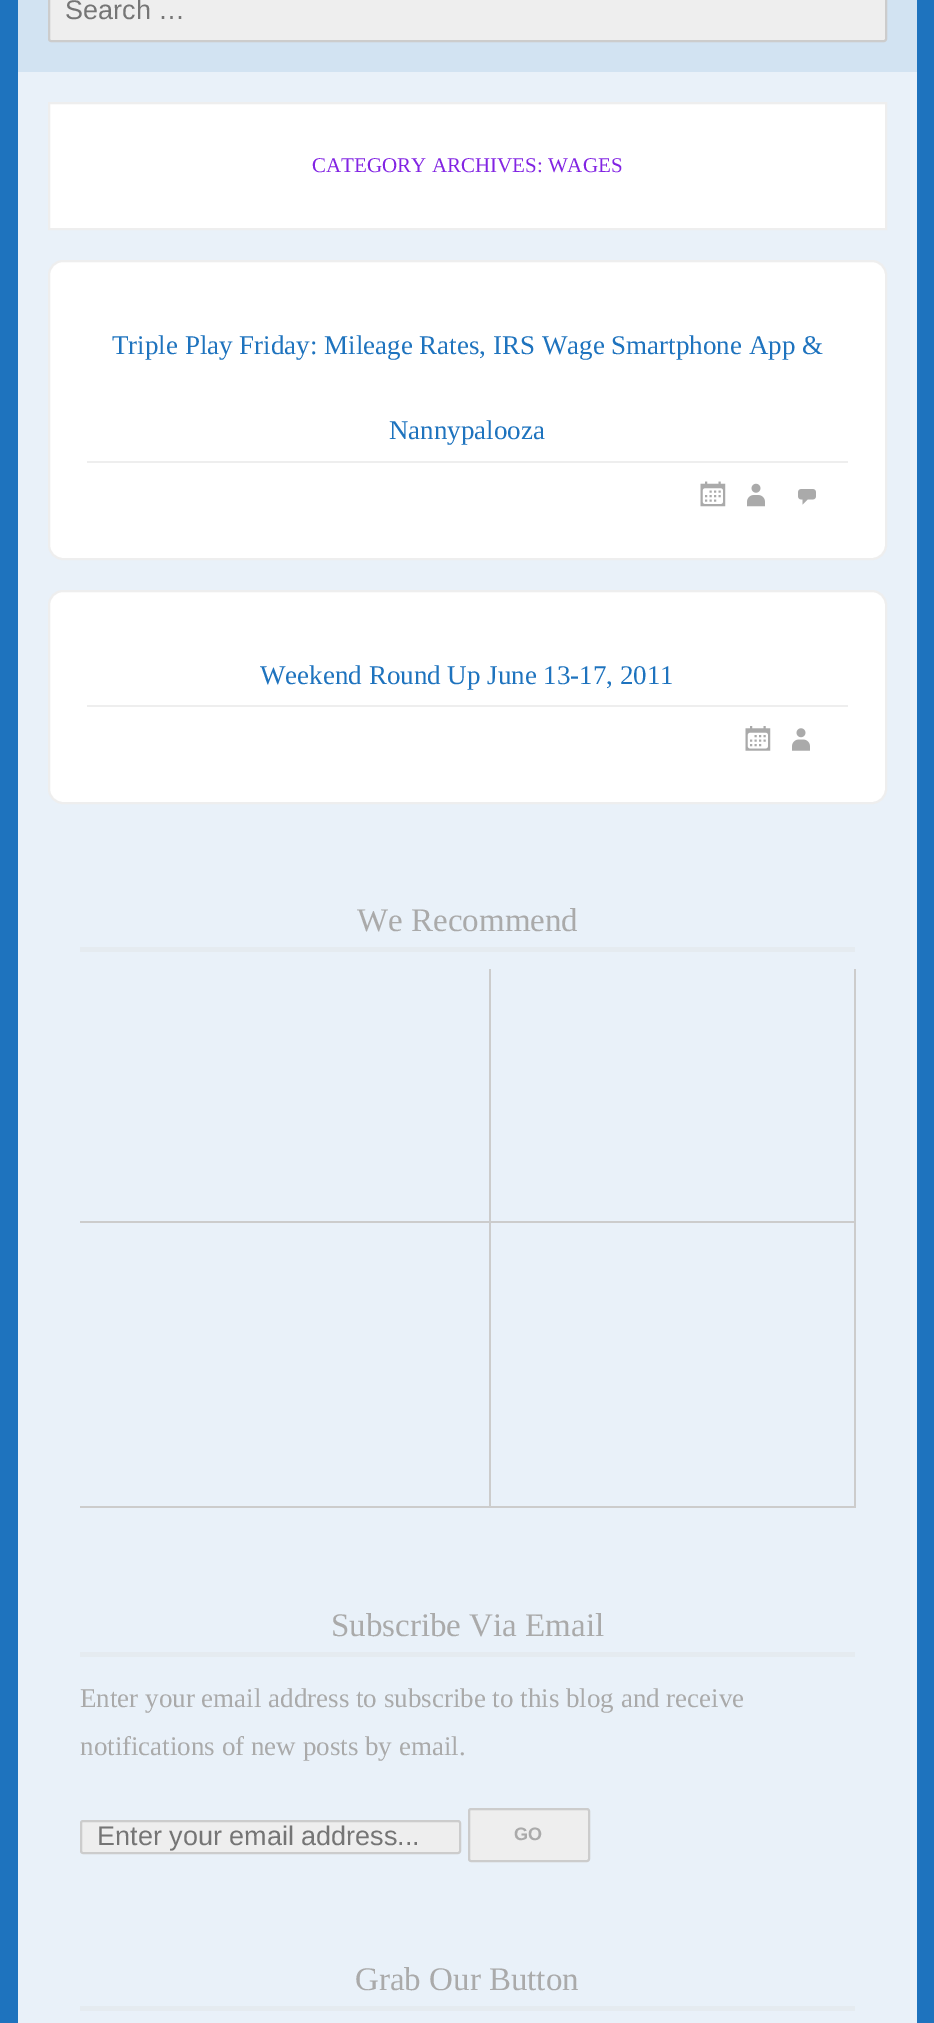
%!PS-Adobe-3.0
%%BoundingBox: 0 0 934 2023
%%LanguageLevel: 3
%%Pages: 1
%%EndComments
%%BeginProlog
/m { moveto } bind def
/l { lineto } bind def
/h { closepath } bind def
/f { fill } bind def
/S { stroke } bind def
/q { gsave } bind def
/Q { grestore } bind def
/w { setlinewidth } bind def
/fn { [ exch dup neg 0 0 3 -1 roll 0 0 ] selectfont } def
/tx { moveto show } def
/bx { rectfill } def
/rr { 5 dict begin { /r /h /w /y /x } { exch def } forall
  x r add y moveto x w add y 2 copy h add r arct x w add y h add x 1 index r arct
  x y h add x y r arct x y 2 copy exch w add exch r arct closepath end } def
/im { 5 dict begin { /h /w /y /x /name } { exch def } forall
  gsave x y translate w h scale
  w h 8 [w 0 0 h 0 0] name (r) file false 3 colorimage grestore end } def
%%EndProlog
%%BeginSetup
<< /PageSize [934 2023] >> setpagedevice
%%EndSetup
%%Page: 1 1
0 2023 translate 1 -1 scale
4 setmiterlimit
0.118 0.451 0.745 setrgbcolor
0 0 934 2023 bx
0.824 0.89 0.949 setrgbcolor
18 0 899 72 bx
0.933 setgray
49 -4 837 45 2 rr q f Q
0.8 setgray
2 w
S
/LiberationSans-Regular 27 fn
0.459 setgray
(Search …) 65 19 tx
0.914 0.945 0.976 setrgbcolor
18 72 899 1951 bx
1 setgray
49 103 m 886 103 l 886 229 l 49 229 l h q f Q
0.933 setgray
S
/LiberationSerif-Regular 21 fn
0.51 0.141 0.89 setrgbcolor
(CATEGORY ARCHIVES: WAGES) 312 172 tx
1 setgray
49 261 837 298 14 rr q f Q
0.933 setgray
S
87 461 761 2 bx
/LiberationSerif-Regular 27 fn
0.118 0.451 0.745 setrgbcolor
(Triple Play Friday: Mileage Rates, IRS Wage Smartphone App &) 112 354 tx
(Nannypalooza) 389 439 tx
(image0.raw) 700 481 26 26 im
(image1.raw) 747 483 18 24 im
(image2.raw) 798 489 18 16 im
1 setgray
49 591 837 212 14 rr q f Q
0.933 setgray
S
87 705 761 2 bx
0.118 0.451 0.745 setrgbcolor
(Weekend Round Up June 13-17, 2011) 260 684 tx
(image3.raw) 745 726 26 25 im
(image4.raw) 792 728 18 23 im
0.898 0.922 0.941 setrgbcolor
80 947 775 5 bx
/LiberationSerif-Regular 33 fn
0.667 setgray
(We Recommend) 357 931 tx
0.8 setgray
489 969 2 539 bx
80 1221 411 2 bx
854 969 2 539 bx
491 1221 364 2 bx
80 1506 775 2 bx
0.898 0.922 0.941 setrgbcolor
80 1652 775 5 bx
0.667 setgray
(Subscribe Via Email) 331 1636 tx
/LiberationSerif-Regular 27 fn
(Enter your email address to subscribe to this blog and receive) 80 1707 tx
(notifications of new posts by email.) 80 1755 tx
0.933 setgray
81 1821 379 32 2 rr q f Q
0.8 setgray
S
/LiberationSans-Regular 27 fn
0.459 setgray
(Enter your email address...) 97 1845 tx
0.933 setgray
469 1809 120 52 2 rr q f Q
0.8 setgray
S
/LiberationSans-Bold 18 fn
0.667 setgray
(GO) 514 1840 tx
0.898 0.922 0.941 setrgbcolor
80 2006 775 5 bx
/LiberationSerif-Regular 33 fn
0.667 setgray
(Grab Our Button) 355 1990 tx
showpage
%%EOF
